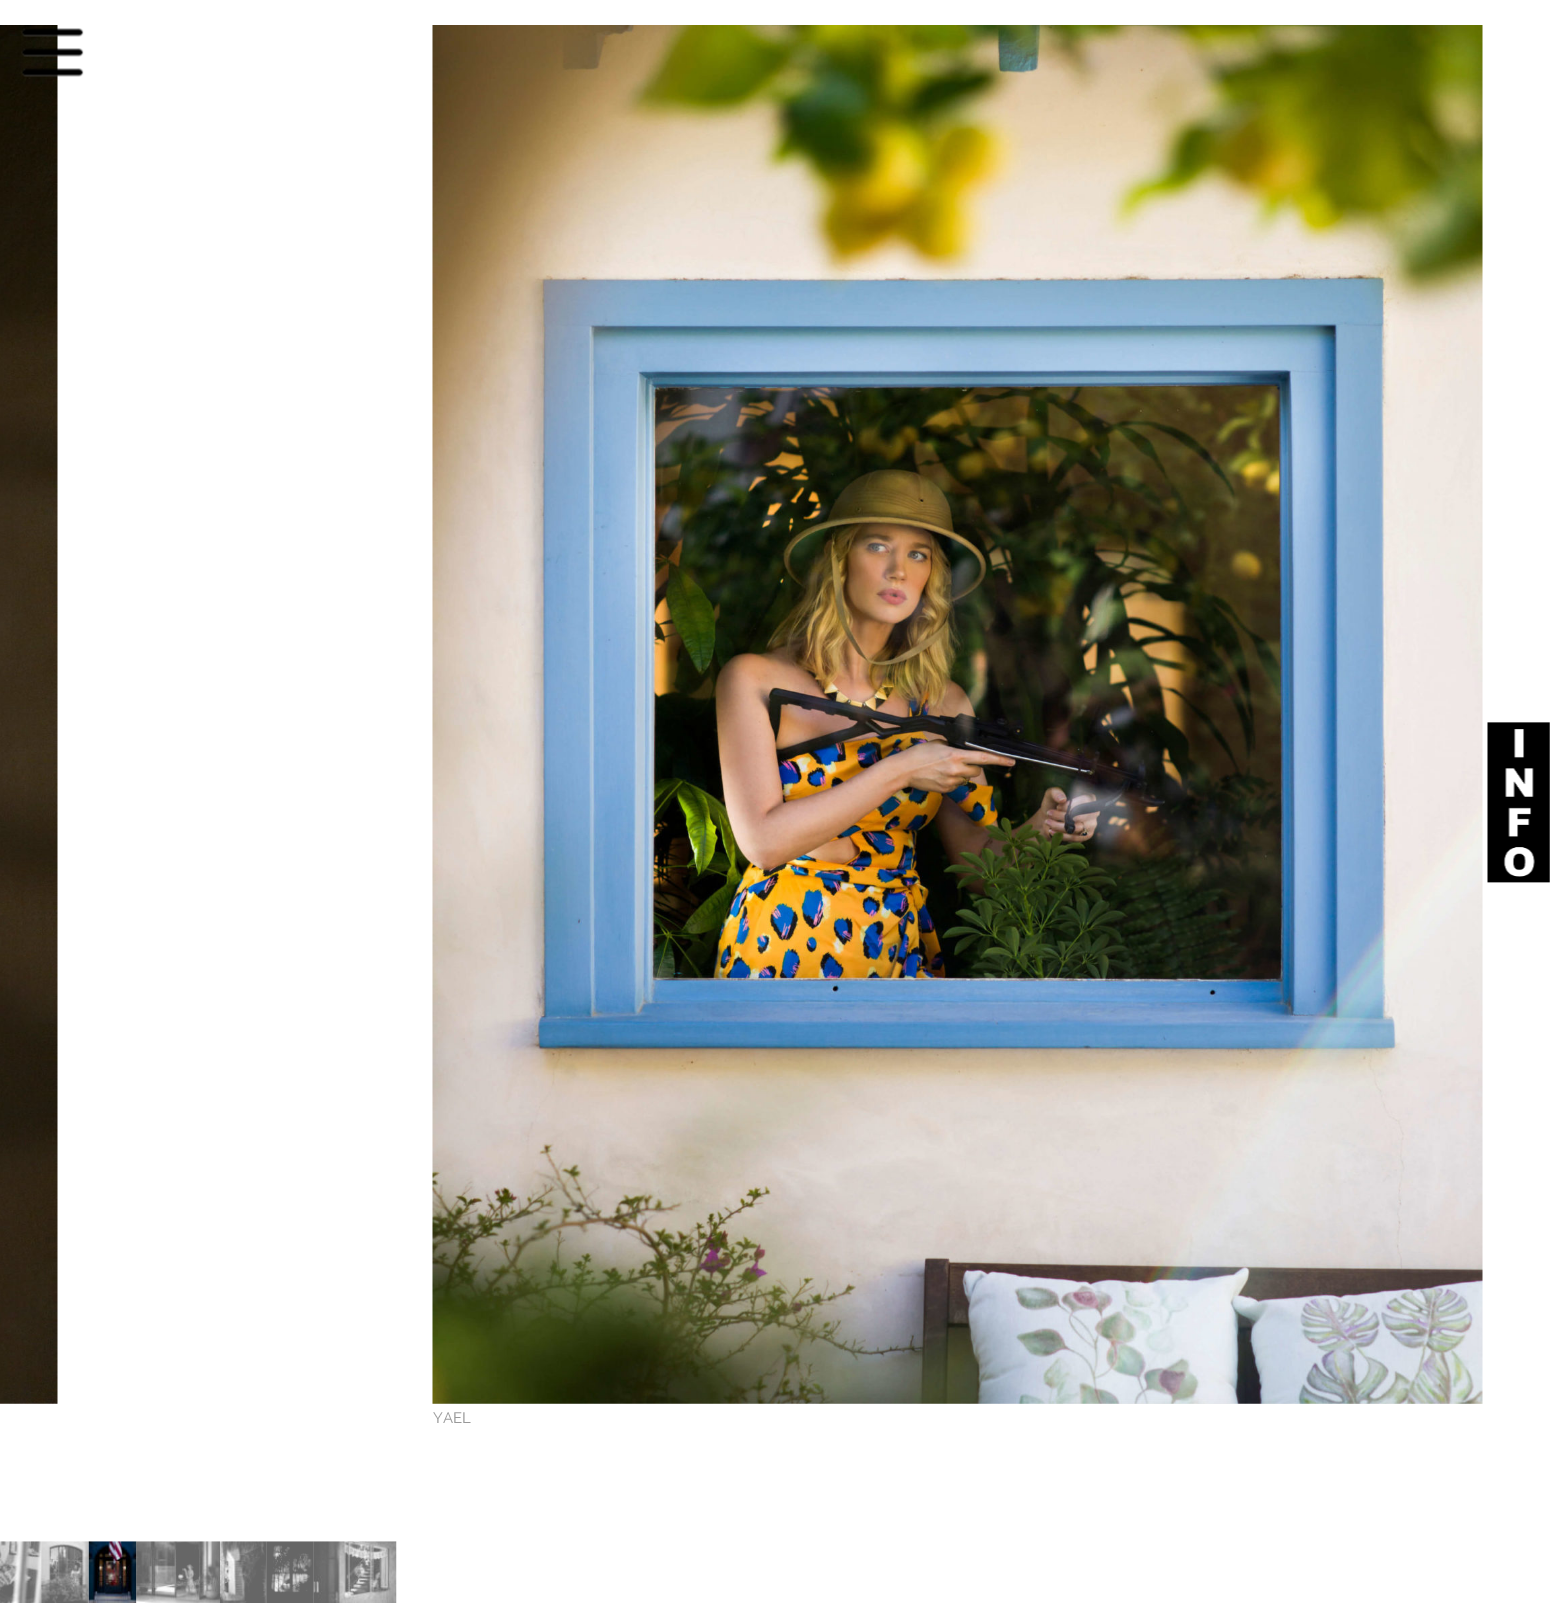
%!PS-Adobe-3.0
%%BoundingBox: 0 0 1550 1603
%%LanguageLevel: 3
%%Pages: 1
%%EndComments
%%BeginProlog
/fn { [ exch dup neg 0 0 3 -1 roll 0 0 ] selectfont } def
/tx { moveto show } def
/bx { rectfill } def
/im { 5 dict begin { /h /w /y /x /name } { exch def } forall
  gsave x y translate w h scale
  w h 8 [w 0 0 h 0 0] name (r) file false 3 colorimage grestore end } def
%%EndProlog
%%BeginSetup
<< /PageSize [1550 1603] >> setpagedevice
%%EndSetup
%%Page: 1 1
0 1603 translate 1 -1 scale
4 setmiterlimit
1 setgray
0 0 1550 1603 bx
(image2.raw) 0 25 58 1379 im
(image0.raw) 21 28 63 49 im
(image1.raw) 1487 722 63 161 im
(image3.raw) 432 25 1051 1379 im
/Raleway-Regular 15 fn
0.6 setgray
(YAEL) 433 1423 tx
(image4.raw) 0 1541 42 62 im
(image5.raw) 41 1541 48 62 im
(image6.raw) 88 1541 49 62 im
(image7.raw) 136 1541 84 62 im
(image8.raw) 220 1541 47 62 im
(image9.raw) 266 1541 48 62 im
(image10.raw) 313 1541 84 62 im
showpage
%%EOF
